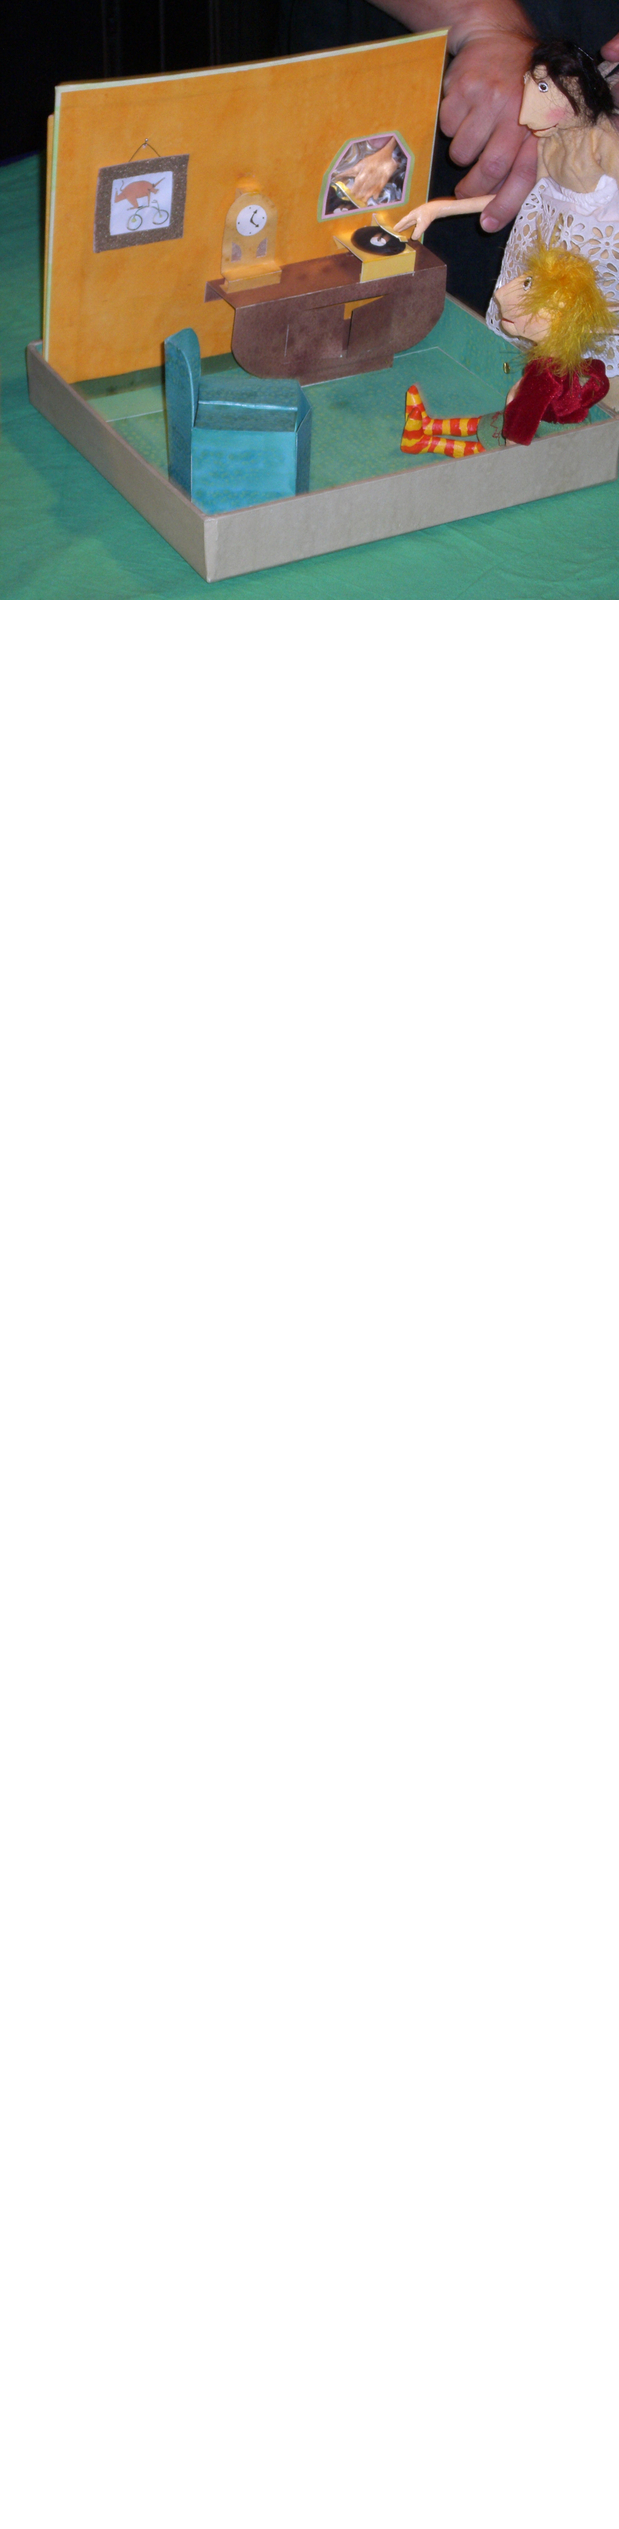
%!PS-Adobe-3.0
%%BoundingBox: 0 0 619 2529
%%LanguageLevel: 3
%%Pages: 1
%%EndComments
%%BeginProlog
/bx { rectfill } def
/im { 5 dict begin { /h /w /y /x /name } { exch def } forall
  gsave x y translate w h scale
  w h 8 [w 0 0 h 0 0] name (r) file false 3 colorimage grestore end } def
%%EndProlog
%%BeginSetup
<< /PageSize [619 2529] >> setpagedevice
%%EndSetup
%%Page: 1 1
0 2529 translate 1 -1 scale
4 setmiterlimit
1 setgray
0 0 619 2529 bx
(image0.raw) 0 0 619 600 im
showpage
%%EOF
